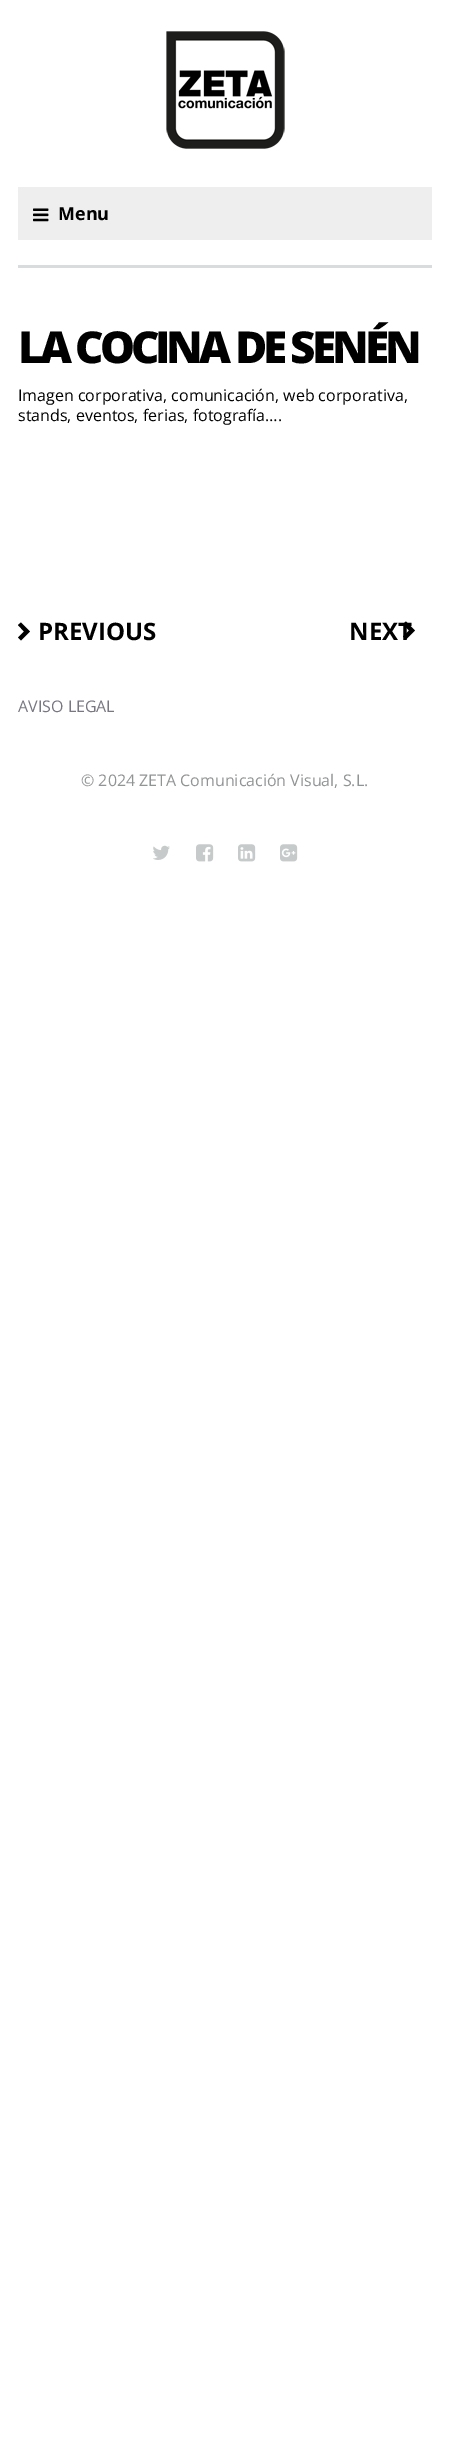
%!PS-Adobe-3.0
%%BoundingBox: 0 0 450 2437
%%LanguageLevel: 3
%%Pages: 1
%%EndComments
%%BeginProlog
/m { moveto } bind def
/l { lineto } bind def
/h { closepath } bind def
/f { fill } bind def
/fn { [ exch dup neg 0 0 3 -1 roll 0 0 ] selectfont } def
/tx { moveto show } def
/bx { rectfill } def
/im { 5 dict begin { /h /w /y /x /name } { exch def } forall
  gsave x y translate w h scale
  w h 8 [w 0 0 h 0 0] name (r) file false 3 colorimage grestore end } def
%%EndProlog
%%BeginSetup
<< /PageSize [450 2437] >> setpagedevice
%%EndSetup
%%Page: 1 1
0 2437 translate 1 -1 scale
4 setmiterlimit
1 setgray
0 0 450 2437 bx
0.851 0.863 0.867 setrgbcolor
18 265 414 3 bx
(image0.raw) 166 31 119 118 im
0.933 setgray
18 187 414 53 bx
(image1.raw) 33 208 16 14 im
/OpenSans-Bold 18 fn
0 setgray
(Menu) 58 220 tx
/OpenSans-ExtraBold 44 fn
18 363 m -4 0 (LA COCINA DE SENÉN) ashow
/OpenSans-Regular 16 fn
(Imagen corporativa, comunicación, web corporativa,) 18 401 tx
(stands, eventos, ferias, fotografía….) 18 421 tx
24 631.5 m 18 625 l 21 622.5 l 30 631.5 l 21 640.5 l 18 637.5 l h f
/OpenSans-Bold 24 fn
(PREVIOUS) 38 640 tx
406 621.5 m 415 630.5 l 406 639.5 l 403 636.5 l 409 630.5 l 403 624 l h f
(NEXT) 349 640 tx
/OpenSans-Regular 16 fn
0.471 0.471 0.51 setrgbcolor
(AVISO LEGAL) 18 712 tx
0.569 0.58 0.584 setrgbcolor
(© 2024 ZETA Comunicación Visual, S.L.) 81 786 tx
(image2.raw) 153 845 17 15 im
(image3.raw) 196 844 18 18 im
(image4.raw) 238 844 18 18 im
(image5.raw) 280 844 18 18 im
showpage
%%EOF
